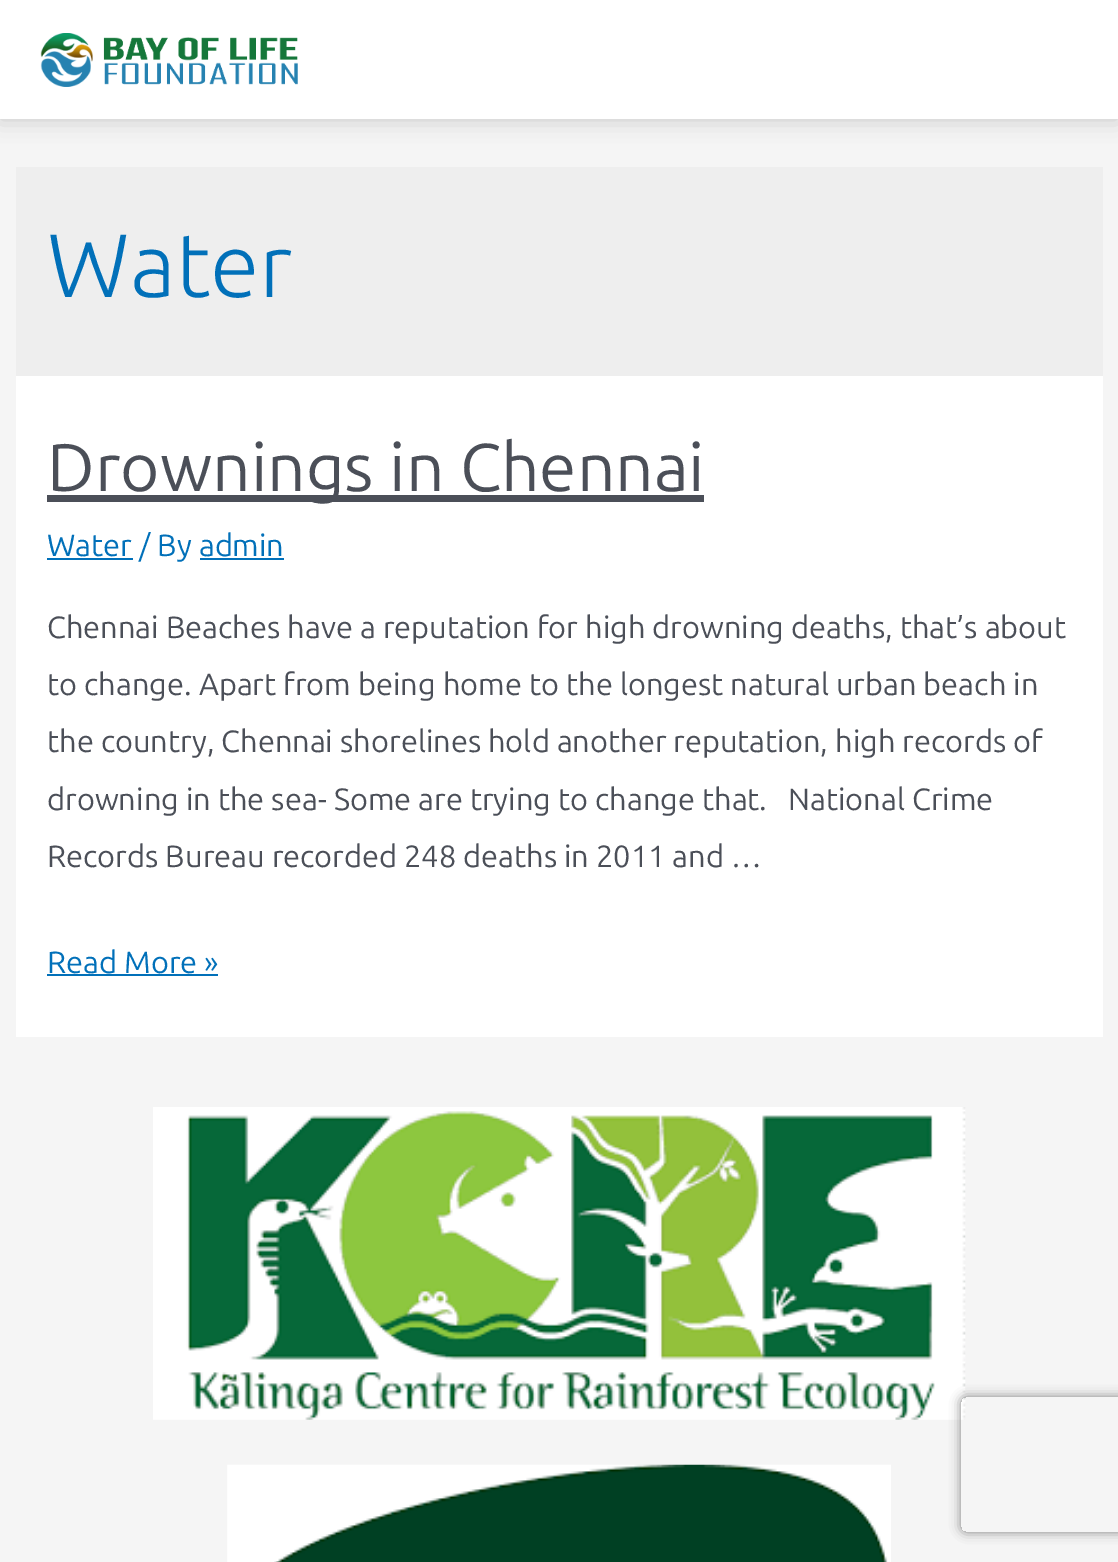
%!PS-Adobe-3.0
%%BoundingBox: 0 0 1118 1562
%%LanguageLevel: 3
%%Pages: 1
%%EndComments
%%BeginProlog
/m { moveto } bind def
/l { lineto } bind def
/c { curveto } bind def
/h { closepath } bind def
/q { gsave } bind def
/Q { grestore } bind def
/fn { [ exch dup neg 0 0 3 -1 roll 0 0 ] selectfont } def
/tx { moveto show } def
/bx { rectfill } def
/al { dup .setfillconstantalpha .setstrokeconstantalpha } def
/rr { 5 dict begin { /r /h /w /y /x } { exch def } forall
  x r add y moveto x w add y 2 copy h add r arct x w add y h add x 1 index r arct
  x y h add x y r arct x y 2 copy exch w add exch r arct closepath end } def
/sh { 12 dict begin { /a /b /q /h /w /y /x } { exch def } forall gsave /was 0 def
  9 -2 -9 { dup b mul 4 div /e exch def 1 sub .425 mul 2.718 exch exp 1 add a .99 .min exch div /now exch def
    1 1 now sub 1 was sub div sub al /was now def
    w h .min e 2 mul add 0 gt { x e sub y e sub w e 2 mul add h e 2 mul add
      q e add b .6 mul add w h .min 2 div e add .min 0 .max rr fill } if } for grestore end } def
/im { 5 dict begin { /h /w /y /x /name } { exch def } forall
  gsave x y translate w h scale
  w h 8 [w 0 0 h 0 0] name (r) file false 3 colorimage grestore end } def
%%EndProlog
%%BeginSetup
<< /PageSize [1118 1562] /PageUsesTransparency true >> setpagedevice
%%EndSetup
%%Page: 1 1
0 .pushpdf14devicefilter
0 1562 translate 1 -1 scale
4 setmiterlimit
0.961 setgray
0 0 1118 1562 bx
0 setgray
0 0 1118 119 0 11 0.19 sh
1 setgray
0 0 1118 119 bx
(image0.raw) 40 33 258 54 im
0.933 setgray
16 167 1087 209 bx
/Ubuntu-Light 90 fn
0.004 0.439 0.725 setrgbcolor
(Water) 47 297 tx
1 setgray
16 376 1087 661 bx
0.294 0.31 0.345 setrgbcolor
47 495 657 7 bx
/Ubuntu-Regular 67.5 fn
(Drownings in Chennai) 47 491 tx
0.004 0.439 0.725 setrgbcolor
47 558 86 2 bx
/Ubuntu-Regular 30.75 fn
(Water / By admin) 47 556 tx
200 558 84 2 bx
0.294 0.31 0.345 setrgbcolor
(Chennai Beaches have a reputation for high drowning deaths, that’s about) 47 638 tx
(to change. Apart from being home to the longest natural urban beach in) 47 695 tx
(the country, Chennai shorelines hold another reputation, high records of) 47 752 tx
(drowning in the sea- Some are trying to change that.   National Crime) 47 810 tx
(Records Bureau recorded 248 deaths in 2011 and …) 47 867 tx
0.004 0.439 0.725 setrgbcolor
(Read More ») 47 973 tx
47 974 171 2 bx
(image1.raw) 153 1107 813 313 im
(image2.raw) 227 1464 664 98 im
q
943 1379 m 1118 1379 l 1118 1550 l 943 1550 l h 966 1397 m 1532 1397 l 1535 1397 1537 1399 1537 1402 c 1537 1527 l 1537 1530 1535 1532 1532 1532 c 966 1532 l 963 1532 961 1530 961 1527 c 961 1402 l 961 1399 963 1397 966 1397 c h eoclip newpath
0.502 setgray
961 1397 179 135 5 5.5 1 sh
Q
.poppdf14devicefilter showpage
%%EOF
